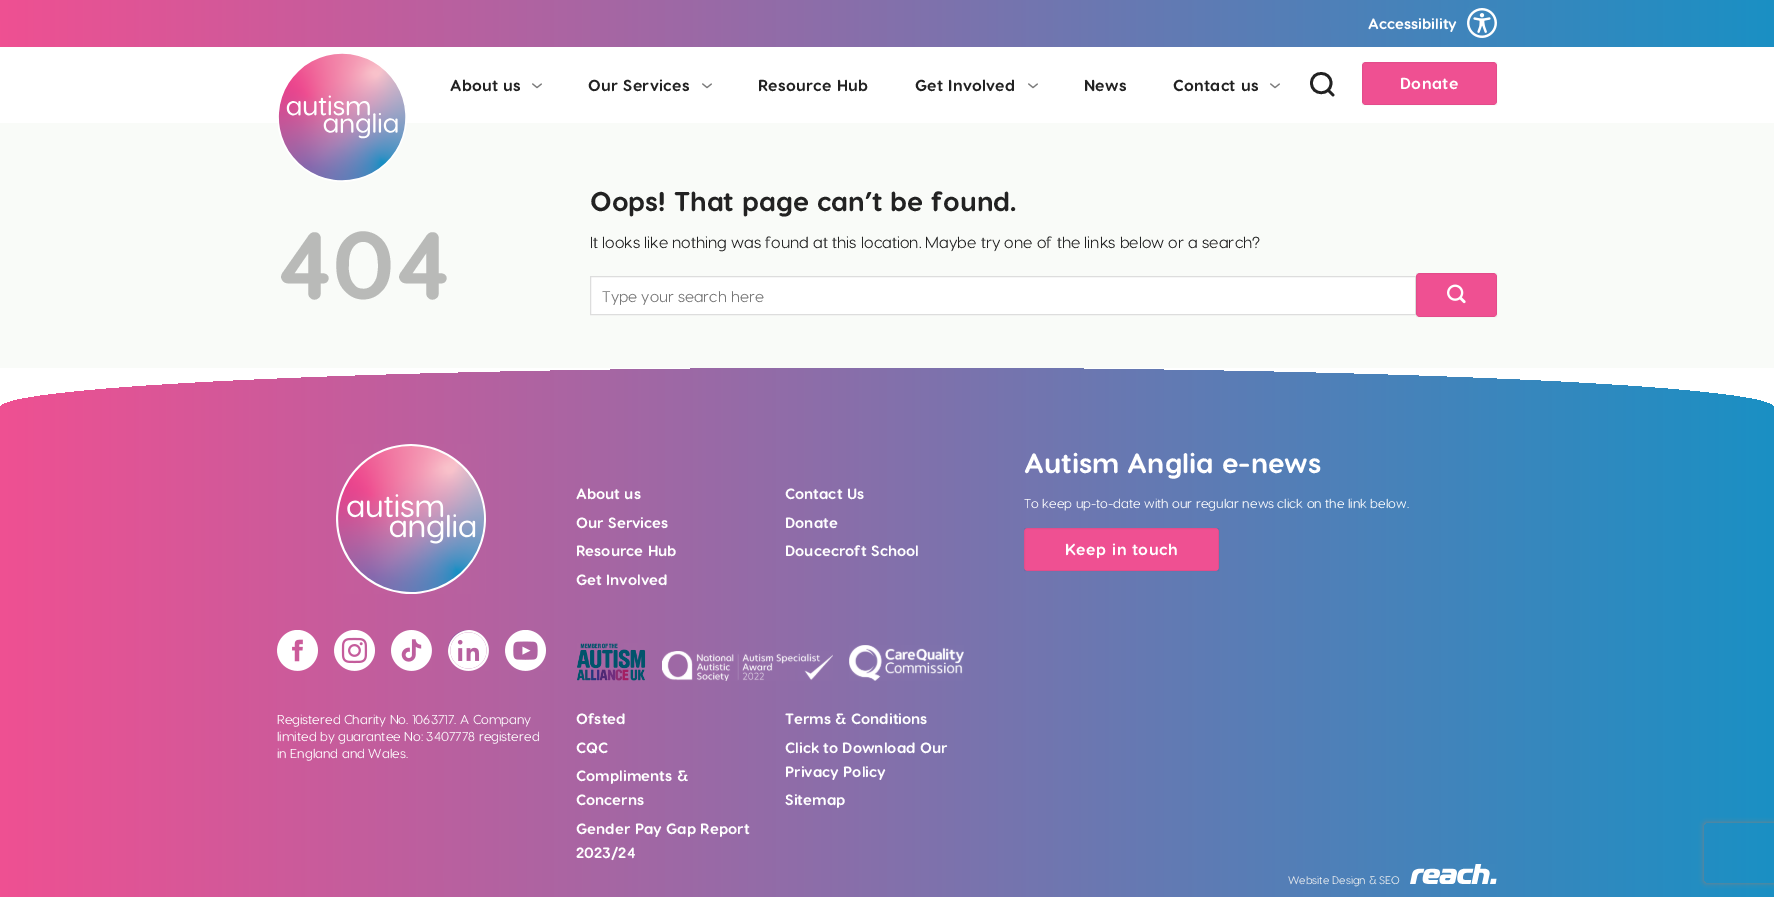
%!PS-Adobe-3.0
%%BoundingBox: 0 0 1774 897
%%LanguageLevel: 3
%%Pages: 1
%%EndComments
%%BeginProlog
/m { moveto } bind def
/l { lineto } bind def
/c { curveto } bind def
/h { closepath } bind def
/f { fill } bind def
/S { stroke } bind def
/q { gsave } bind def
/Q { grestore } bind def
/w { setlinewidth } bind def
/fn { [ exch dup neg 0 0 3 -1 roll 0 0 ] selectfont } def
/tx { moveto show } def
/bx { rectfill } def
/al { dup .setfillconstantalpha .setstrokeconstantalpha } def
/rr { 5 dict begin { /r /h /w /y /x } { exch def } forall
  x r add y moveto x w add y 2 copy h add r arct x w add y h add x 1 index r arct
  x y h add x y r arct x y 2 copy exch w add exch r arct closepath end } def
/sh { 12 dict begin { /a /b /q /h /w /y /x } { exch def } forall gsave /was 0 def
  9 -2 -9 { dup b mul 4 div /e exch def 1 sub .425 mul 2.718 exch exp 1 add a .99 .min exch div /now exch def
    1 1 now sub 1 was sub div sub al /was now def
    w h .min e 2 mul add 0 gt { x e sub y e sub w e 2 mul add h e 2 mul add
      q e add b .6 mul add w h .min 2 div e add .min 0 .max rr fill } if } for grestore end } def
/im { 5 dict begin { /h /w /y /x /name } { exch def } forall
  gsave x y translate w h scale
  w h 8 [w 0 0 h 0 0] name (r) file false 3 colorimage grestore end } def
%%EndProlog
%%BeginSetup
<< /PageSize [1774 897] /PageUsesTransparency true >> setpagedevice
%%EndSetup
%%Page: 1 1
0 .pushpdf14devicefilter
0 897 translate 1 -1 scale
4 setmiterlimit
0.976 0.984 0.973 setrgbcolor
0 0 1774 897 bx
q 0 0 m 1774 0 l 1774 47 l 0 47 l h clip newpath
<< /ShadingType 2 /ColorSpace /DeviceRGB /Coords [1774 23 0 24] /Extend [true true] /Function << /FunctionType 2 /Domain [0 1] /C0 [0.102 0.565 0.769] /C1 [0.937 0.314 0.573] /N 1 >> >> shfill Q
/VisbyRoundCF-Bold 15 fn
1 setgray
(Accessibility) 1368 29 tx
(image0.raw) 1467 8 30 30 im
0 47 1774 76 bx
(image1.raw) 278 53 129 129 im
/VisbyRoundCF-Bold 16 fn
0.133 setgray
450 91 m 0.25 0 (About us) ashow
(image2.raw) 532 83 10 6 im
588 91 m 0.25 0 (Our Services) ashow
(image2.raw) 702 83 10 6 im
758 91 m 0.25 0 (Resource Hub) ashow
915 91 m 0.25 0 (Get Involved) ashow
(image2.raw) 1028 83 10 6 im
1084 91 m 0.25 0 (News) ashow
1173 91 m 0.25 0 (Contact us) ashow
(image2.raw) 1270 83 10 6 im
2.7 w
1 setlinecap
1333 95 m 1328 90 l 1331 83 m 1331 96 1311.5 96 1311.5 83 c 1311.5 70 1331 70.5 1331 83 c h S
0.937 0.314 0.573 setrgbcolor
1362 62 135 43 4 rr f
0.05 al
0 setgray
1 w
0 setlinecap
1362.5 62.5 134 42 rectstroke
1 al
1 setgray
1400 89 m 0.5 0 (Donate) ashow
/VisbyRoundCF-Bold 96 fn
0.725 0.729 0.722 setrgbcolor
(404) 277 299 tx
/VisbyRoundCF-Bold 27.25 fn
0.133 setgray
(Oops! That page can’t be found.) 590 211 tx
/VisbyRoundCF-Regular 16 fn
(It looks like nothing was found at this location. Maybe try one of the links below or a search?) 590 248 tx
1 setgray
590.5 276.5 m 1415.5 276.5 l 1415.5 314.5 l 590.5 314.5 l h q f Q
0.867 setgray
S
/VisbyRoundCF-Regular 15.5 fn
0.459 setgray
(Type your search here) 602 302 tx
0.937 0.314 0.573 setrgbcolor
1416 273 81 44 4 rr f
0.05 al
0 setgray
1416.5 273.5 80 43 rectstroke
1 al
(image3.raw) 1447 284 19 20 im
1 setgray
0 368 1774 40 bx
q 887 368 m 1377 368 1774 386 1774 408 c 1774 430 1377 448 887 448 c 397 448 0 430 0 408 c 0 386 397 368 887 368 c h clip newpath
<< /ShadingType 2 /ColorSpace /DeviceRGB /Coords [1774 408 0 408] /Extend [true true] /Function << /FunctionType 2 /Domain [0 1] /C0 [0.102 0.565 0.769] /C1 [0.937 0.314 0.573] /N 1 >> >> shfill Q
q 0 408 m 1774 408 l 1774 864 l 0 864 l h clip newpath
<< /ShadingType 2 /ColorSpace /DeviceRGB /Coords [1774 636 0 636] /Extend [true true] /Function << /FunctionType 2 /Domain [0 1] /C0 [0.102 0.565 0.769] /C1 [0.937 0.314 0.573] /N 1 >> >> shfill Q
(image4.raw) 336 444 150 150 im
(image5.raw) 277 630 41 41 im
(image6.raw) 334 630 41 41 im
(image7.raw) 391 630 41 41 im
(image8.raw) 448 630 41 41 im
(image9.raw) 505 630 41 41 im
/VisbyRoundCF-Bold 15 fn
(About us) 576 499 tx
(Our Services) 576 528 tx
(Resource Hub) 576 556 tx
(Get Involved) 576 585 tx
(Contact Us) 785 499 tx
(Donate) 785 528 tx
(Doucecroft School) 785 556 tx
(image10.raw) 577 643 69 38 im
(image11.raw) 662 651 171 30 im
(image12.raw) 849 645 115 36 im
/VisbyRoundCF-Regular 13 fn
(Registered Charity No. 1063717. A Company) 277 724 tx
(limited by guarantee No: 3407778 registered) 277 741 tx
(in England and Wales.) 277 758 tx
/VisbyRoundCF-Bold 15 fn
(Ofsted) 576 724 tx
(CQC) 576 753 tx
(Compliments &) 576 781 tx
(Concerns) 576 805 tx
(Gender Pay Gap Report) 576 834 tx
(2023/24) 576 858 tx
(Terms & Conditions) 785 724 tx
(Click to Download Our) 785 753 tx
(Privacy Policy) 785 777 tx
(Sitemap) 785 805 tx
/VisbyRoundCF-Bold 28 fn
(Autism Anglia e-news) 1024 473 tx
/VisbyRoundCF-Regular 13 fn
(To keep up-to-date with our regular news click on the link below.) 1024 508 tx
0.937 0.314 0.573 setrgbcolor
1024 528 195 43 4 rr f
0.05 al
0 setgray
1024.5 528.5 194 42 rectstroke
/VisbyRoundCF-Bold 16 fn
1 al
1 setgray
1065 555 m 0.5 0 (Keep in touch) ashow
q 0 864 m 1774 864 l 1774 897 l 0 897 l h clip newpath
<< /ShadingType 2 /ColorSpace /DeviceRGB /Coords [1774 884 0 885] /Extend [true true] /Function << /FunctionType 2 /Domain [0 1] /C0 [0.102 0.565 0.769] /C1 [0.937 0.314 0.573] /N 1 >> >> shfill Q
/VisbyRoundCF-Regular 11 fn
0.945 setgray
(Website Design & SEO) 1288 884 tx
(image13.raw) 1410 864 87 20 im
q
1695 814 m 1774 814 l 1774 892 l 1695 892 l h 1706 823 m 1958 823 l 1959 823 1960 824 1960 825 c 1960 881 l 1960 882 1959 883 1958 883 c 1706 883 l 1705 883 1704 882 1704 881 c 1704 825 l 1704 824 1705 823 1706 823 c h eoclip newpath
0.502 setgray
1704 823 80 60 2 2.5 1 sh
Q
.poppdf14devicefilter showpage
%%EOF
